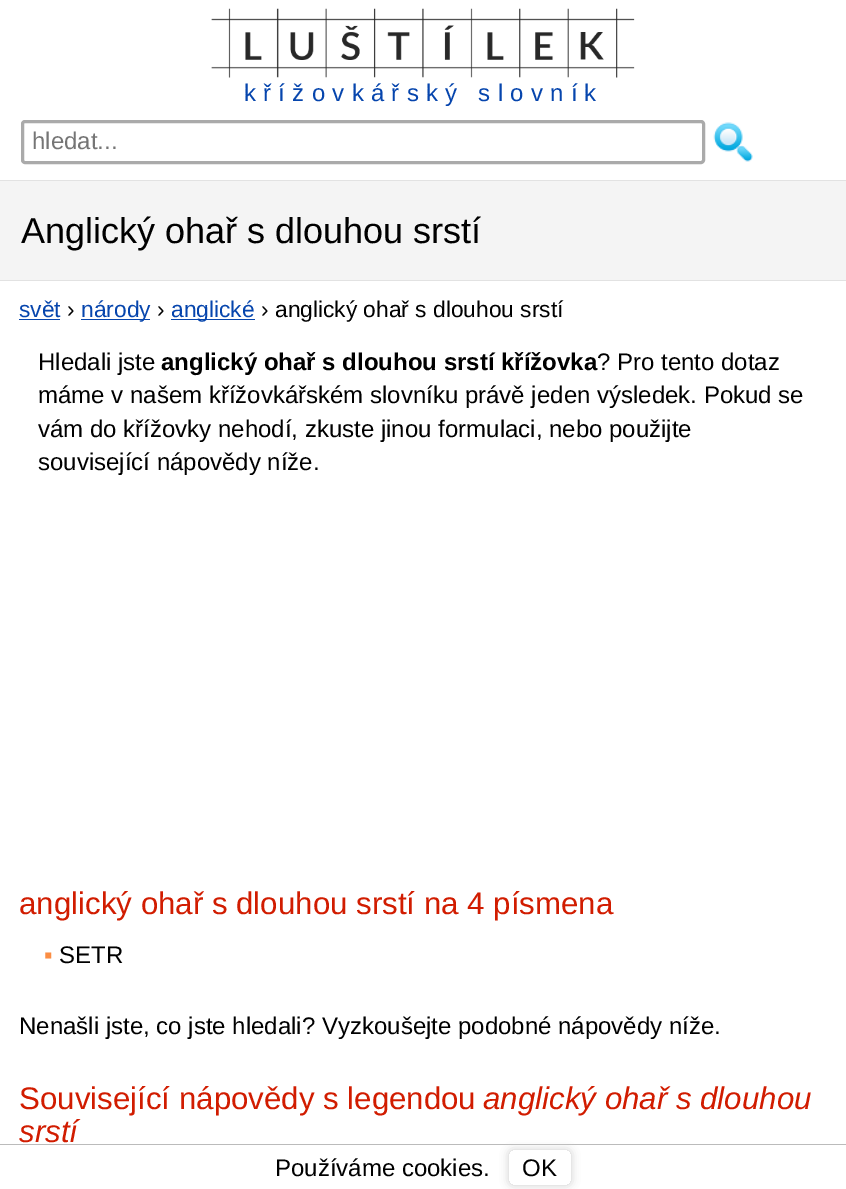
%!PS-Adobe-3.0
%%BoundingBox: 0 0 846 1189
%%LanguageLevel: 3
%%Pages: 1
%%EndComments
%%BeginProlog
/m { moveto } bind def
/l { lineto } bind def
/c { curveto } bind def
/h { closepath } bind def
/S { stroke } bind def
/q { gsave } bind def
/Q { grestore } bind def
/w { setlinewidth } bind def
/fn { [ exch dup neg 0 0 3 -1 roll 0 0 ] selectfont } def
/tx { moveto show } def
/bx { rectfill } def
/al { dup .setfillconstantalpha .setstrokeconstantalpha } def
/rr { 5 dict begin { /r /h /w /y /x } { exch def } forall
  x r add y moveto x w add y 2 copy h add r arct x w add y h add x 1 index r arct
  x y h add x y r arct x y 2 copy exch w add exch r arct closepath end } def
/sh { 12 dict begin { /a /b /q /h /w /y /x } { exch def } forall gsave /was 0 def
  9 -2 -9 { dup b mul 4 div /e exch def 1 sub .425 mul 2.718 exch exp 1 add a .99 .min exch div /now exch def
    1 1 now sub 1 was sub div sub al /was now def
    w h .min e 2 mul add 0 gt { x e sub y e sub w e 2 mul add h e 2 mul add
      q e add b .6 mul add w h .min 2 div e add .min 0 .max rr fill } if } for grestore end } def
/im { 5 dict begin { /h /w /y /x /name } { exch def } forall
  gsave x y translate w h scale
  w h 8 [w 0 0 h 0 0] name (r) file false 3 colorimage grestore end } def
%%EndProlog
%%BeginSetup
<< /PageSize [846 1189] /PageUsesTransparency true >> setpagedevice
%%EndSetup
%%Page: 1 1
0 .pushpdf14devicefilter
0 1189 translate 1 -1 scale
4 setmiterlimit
1 setgray
0 0 846 1189 bx
(image0.raw) 211 8 424 70 im
/LiberationSans-Regular 24 fn
0.024 0.271 0.678 setrgbcolor
244 101 m 7.25 0 (křížovkářský slovník) ashow
0.667 setgray
3 w
22.5 121.5 681 41 2.5 rr S
0.459 setgray
(hledat...) 32 149 tx
(image1.raw) 713 122 40 40 im
0.957 setgray
0 181 846 99 bx
0.886 setgray
0 180 846 1 bx
0 280 846 1 bx
/LiberationSans-Regular 36 fn
0 setgray
(Anglický ohař s dlouhou srstí) 21 243 tx
/LiberationSans-Regular 22.75 fn
0.024 0.271 0.678 setrgbcolor
(svět) 19 317 tx
19 319 41 1 bx
0 setgray
(›) 67 317 tx
0.024 0.271 0.678 setrgbcolor
81 319 69 1 bx
(národy) 81 317 tx
0 setgray
(›) 157 317 tx
0.024 0.271 0.678 setrgbcolor
171 319 84 1 bx
(anglické) 171 317 tx
0 setgray
(› anglický ohař s dlouhou srstí) 261 317 tx
/LiberationSans-Regular 24 fn
(Hledali jste) 38 370 tx
/LiberationSans-Bold 24 fn
(anglický ohař s dlouhou srstí křížovka) 161 370 tx
/LiberationSans-Regular 24 fn
(? Pro tento dotaz) 597 370 tx
(máme v našem křížovkářském slovníku právě jeden výsledek. Pokud se) 38 403 tx
(vám do křížovky nehodí, zkuste jinou formulaci, nebo použijte) 38 437 tx
(související nápovědy níže.) 38 470 tx
/LiberationSans-Regular 31.25 fn
0.82 0.11 0 setrgbcolor
(anglický ohař s dlouhou srstí na 4 písmena) 19 914 tx
/LiberationSans-Regular 24 fn
0.984 0.553 0.263 setrgbcolor
(▪) 44 963 tx
0 setgray
(SETR) 59 963 tx
(Nenašli jste, co jste hledali? Vyzkoušejte podobné nápovědy níže.) 19 1034 tx
/LiberationSans-Regular 31.25 fn
0.82 0.11 0 setrgbcolor
(Související nápovědy s legendou) 19 1109 tx
/LiberationSans-Italic 31.25 fn
(anglický ohař s dlouhou) 483 1109 tx
(srstí) 19 1142 tx
0.733 setgray
0 1144 846 1 bx
/LiberationSans-Regular 24 fn
0 setgray
(Používáme cookies.) 275 1176 tx
q
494 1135 m 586 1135 l 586 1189 l 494 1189 l h 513 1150 m 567 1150 l 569 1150 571 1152 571 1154 c 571 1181 l 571 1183 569 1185 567 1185 c 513 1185 l 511 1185 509 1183 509 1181 c 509 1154 l 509 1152 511 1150 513 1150 c h eoclip newpath
0.8 setgray
509 1150 62 35 4 4.5 1 sh
Q
(OK) 522 1176 tx
.poppdf14devicefilter showpage
%%EOF
